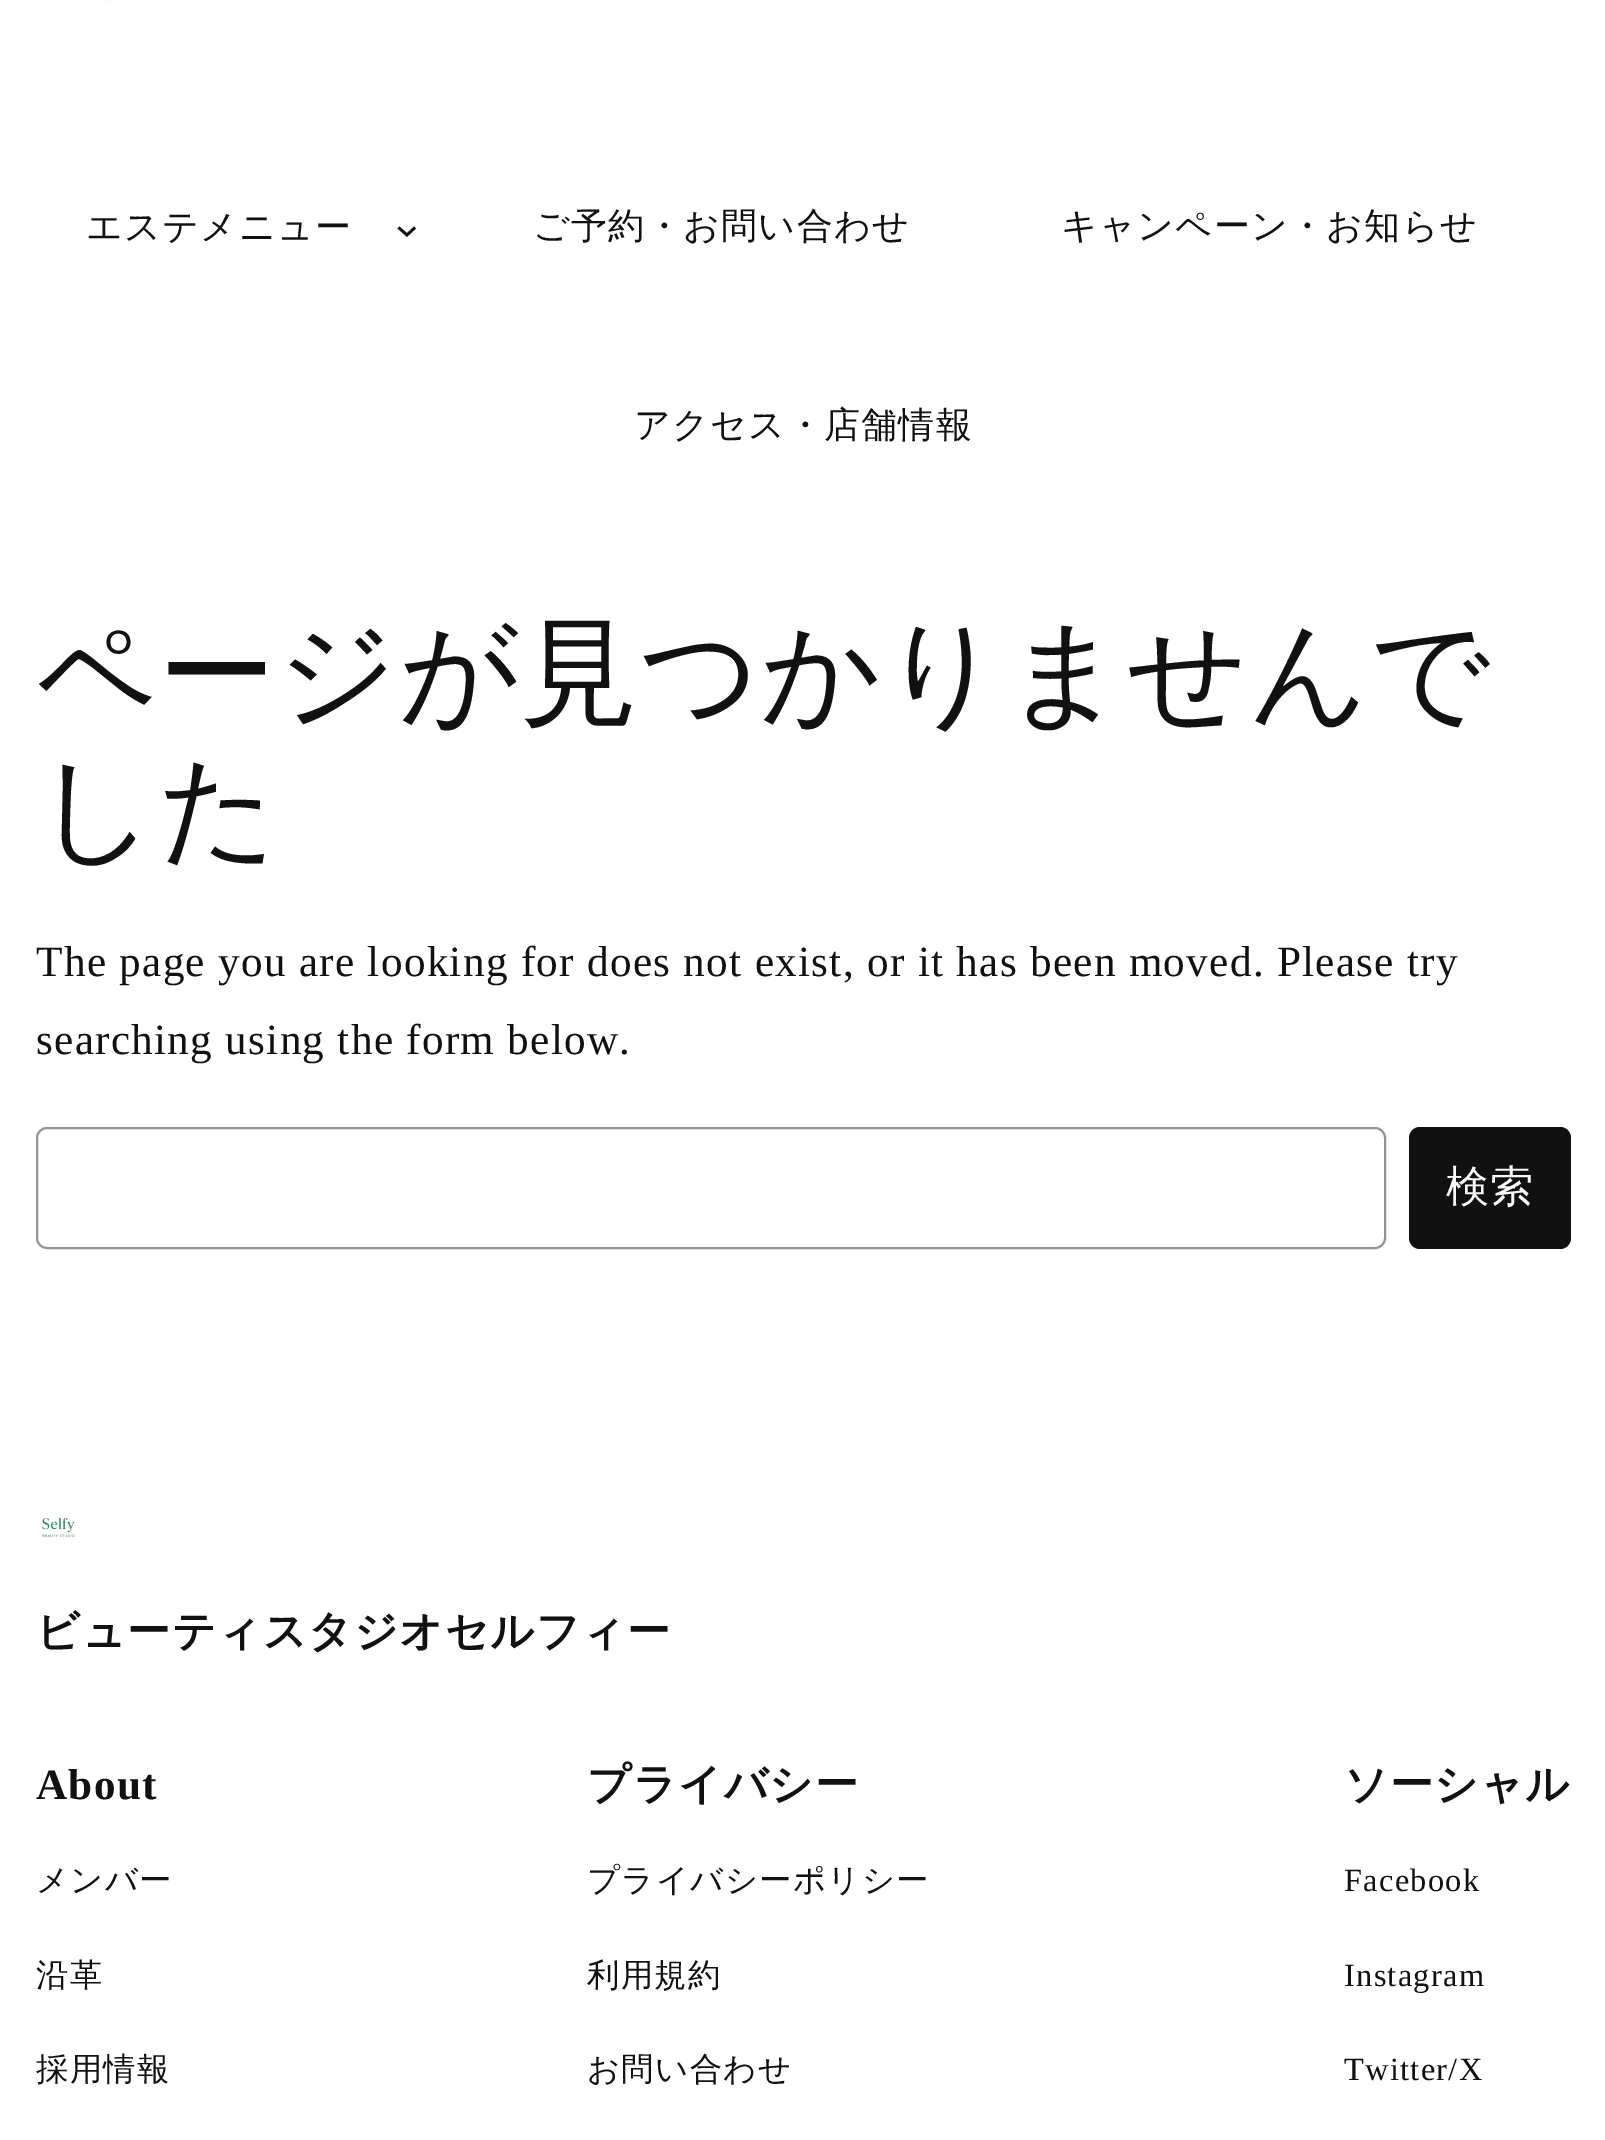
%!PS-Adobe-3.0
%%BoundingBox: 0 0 1605 2140
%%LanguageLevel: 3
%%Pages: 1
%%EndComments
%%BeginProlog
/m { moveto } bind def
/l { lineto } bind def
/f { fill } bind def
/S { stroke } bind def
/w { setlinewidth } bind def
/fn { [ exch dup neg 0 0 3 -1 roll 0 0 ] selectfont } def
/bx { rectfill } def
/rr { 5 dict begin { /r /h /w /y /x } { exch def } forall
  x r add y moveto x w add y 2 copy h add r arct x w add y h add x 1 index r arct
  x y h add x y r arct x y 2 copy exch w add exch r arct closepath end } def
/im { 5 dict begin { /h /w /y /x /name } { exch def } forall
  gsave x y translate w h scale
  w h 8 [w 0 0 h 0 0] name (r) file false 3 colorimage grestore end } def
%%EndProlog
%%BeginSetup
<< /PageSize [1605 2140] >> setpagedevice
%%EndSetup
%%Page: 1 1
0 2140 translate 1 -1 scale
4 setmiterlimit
1 setgray
0 0 1605 2140 bx
(image0.raw) 89 0 156 3 im
/WenQuanYiZenHei-Medium 36 fn
0.067 setgray
86 239 m 1.3 0 (エステメニュー) ashow
2.7 w
398.5 227.5 m 407 235 l 415 227.5 l S
533 238 m 1.3 0 (ご予約・お問い合わせ) ashow
1061 238 m 1.3 0 (キャンペーン・お知らせ) ashow
634 437 m 1.3 0 (アクセス・店舗情報) ashow
/WenQuanYiZenHei-Medium 117.75 fn
36 713 m 1.3 0 (ページが見つかりませんで) ashow
36 849 m 1.3 0 (した) ashow
/LiberationSerif-Regular 43.2 fn
36 976 m 1.3 0 (The page you are looking for does not exist, or it has been moved. Please try) ashow
36 1054 m 1.3 0 (searching using the form below.) ashow
0.58 setgray
2 w
37 1128 1348 120 10 rr S
0.067 setgray
1409 1127 162 122 11 rr f
/WenQuanYiZenHei-Medium 43.2 fn
0.976 setgray
1446 1201 m 1.3 0 (検索) ashow
(image1.raw) 41 1517 34 21 im
/WenQuanYiZenHei-Bold 43.2 fn
0.067 setgray
36 1646 m 1.3 0 (ビューティスタジオセルフィー) ashow
/LiberationSerif-Bold 43.2 fn
36 1799 m 1.3 0 (About) ashow
/WenQuanYiZenHei-Medium 32.4 fn
36 1891 m 1.3 0 (メンバー) ashow
36 1986 m 1.3 0 (沿革) ashow
36 2080 m 1.3 0 (採用情報) ashow
/WenQuanYiZenHei-Bold 43.2 fn
587 1799 m 1.3 0 (プライバシー) ashow
/WenQuanYiZenHei-Medium 32.4 fn
587 1891 m 1.3 0 (プライバシーポリシー) ashow
587 1986 m 1.3 0 (利用規約) ashow
587 2080 m 1.3 0 (お問い合わせ) ashow
/WenQuanYiZenHei-Bold 43.2 fn
1344 1799 m 1.3 0 (ソーシャル) ashow
/LiberationSerif-Regular 32.4 fn
1344 1891 m 1.3 0 (Facebook) ashow
1344 1986 m 1.3 0 (Instagram) ashow
1344 2080 m 1.3 0 (Twitter/X) ashow
showpage
%%EOF
